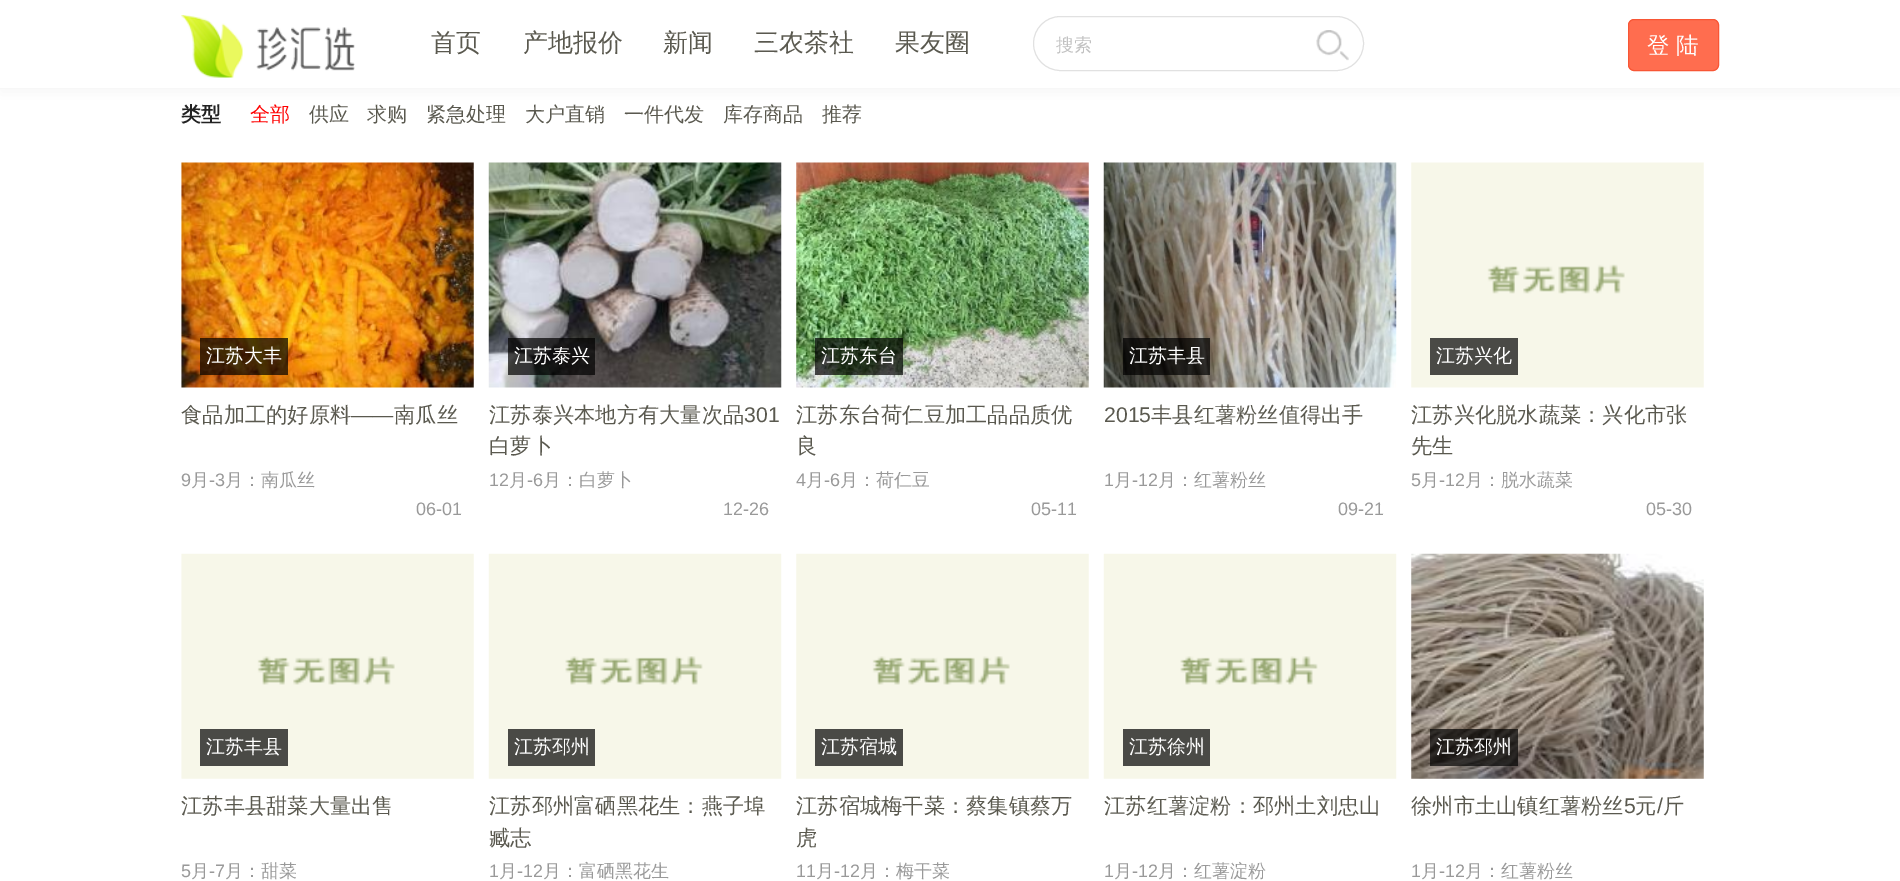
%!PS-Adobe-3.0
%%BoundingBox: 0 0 1900 881
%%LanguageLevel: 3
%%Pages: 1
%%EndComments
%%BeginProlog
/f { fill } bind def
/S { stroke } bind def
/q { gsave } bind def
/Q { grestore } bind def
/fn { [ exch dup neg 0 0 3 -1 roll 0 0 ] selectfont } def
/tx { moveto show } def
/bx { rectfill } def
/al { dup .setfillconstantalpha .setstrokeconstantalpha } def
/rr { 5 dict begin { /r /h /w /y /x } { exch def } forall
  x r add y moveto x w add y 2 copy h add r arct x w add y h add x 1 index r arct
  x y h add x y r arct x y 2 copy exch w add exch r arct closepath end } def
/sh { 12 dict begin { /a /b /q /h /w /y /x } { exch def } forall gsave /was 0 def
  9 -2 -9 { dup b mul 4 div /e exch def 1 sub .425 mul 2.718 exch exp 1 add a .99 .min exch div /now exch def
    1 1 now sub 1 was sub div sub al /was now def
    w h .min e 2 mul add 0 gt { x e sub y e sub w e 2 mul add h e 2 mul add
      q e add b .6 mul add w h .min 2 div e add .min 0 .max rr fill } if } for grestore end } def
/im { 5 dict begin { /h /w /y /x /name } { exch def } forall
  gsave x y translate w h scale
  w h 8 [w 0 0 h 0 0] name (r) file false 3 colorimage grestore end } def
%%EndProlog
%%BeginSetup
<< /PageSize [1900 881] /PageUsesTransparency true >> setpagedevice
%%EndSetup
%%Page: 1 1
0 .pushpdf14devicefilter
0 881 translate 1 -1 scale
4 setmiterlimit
1 setgray
0 0 1900 881 bx
0.843 setgray
1 3 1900 88 0 7.5 0.3 sh
1 setgray
0 0 1900 88 bx
0.969 setgray
0 88 1900 1 bx
(image0.raw) 181 15 174 63 im
/WenQuanYiZenHei-Medium 25 fn
0.353 0.349 0.31 setrgbcolor
(首页) 431 51 tx
(产地报价) 523 51 tx
(新闻) 663 51 tx
(三农茶社) 754 51 tx
(果友圈) 895 51 tx
0.882 setgray
1033.5 16.5 330 54 27 rr S
/WenQuanYiZenHei-Medium 18 fn
0.757 setgray
(搜索) 1056 51 tx
(image1.raw) 1316 30 33 31 im
1 0.427 0.31 setrgbcolor
1628.5 19.5 90 51 5.5 rr q f Q
0.973 0.337 0.208 setrgbcolor
S
/WenQuanYiZenHei-Medium 22.5 fn
1 setgray
(登 陆) 1647 53 tx
/WenQuanYiZenHei-Bold 20 fn
0.133 setgray
(类型) 181 121 tx
/WenQuanYiZenHei-Medium 20 fn
1 0 0 setrgbcolor
(全部) 250 121 tx
0.353 0.349 0.31 setrgbcolor
(供应) 309 121 tx
(求购) 367 121 tx
(紧急处理) 426 121 tx
(大户直销) 525 121 tx
(一件代发) 624 121 tx
(库存商品) 723 121 tx
(推荐) 822 121 tx
(image2.raw) 181 162 293 226 im
0.7 al
0 setgray
200 338 88 37 bx
/WenQuanYiZenHei-Medium 19 fn
1 al
1 setgray
(江苏大丰) 206 362 tx
/WenQuanYiZenHei-Medium 21.25 fn
0.353 0.349 0.31 setrgbcolor
(食品加工的好原料) 181 422 tx
/LiberationSans-Regular 21.25 fn
(――) 351 422 tx
/WenQuanYiZenHei-Medium 21.25 fn
(南瓜丝) 394 422 tx
/LiberationSans-Regular 18 fn
0.6 setgray
(9) 181 486 tx
/WenQuanYiZenHei-Medium 18 fn
(月) 191 486 tx
/LiberationSans-Regular 18 fn
(-3) 209 486 tx
/WenQuanYiZenHei-Medium 18 fn
(月：南瓜丝) 225 486 tx
/LiberationSans-Regular 18 fn
(06-01) 416 515 tx
(image3.raw) 488 162 294 226 im
0.7 al
0 setgray
508 338 87 37 bx
/WenQuanYiZenHei-Medium 19 fn
1 al
1 setgray
(江苏泰兴) 514 362 tx
/WenQuanYiZenHei-Medium 21.25 fn
0.353 0.349 0.31 setrgbcolor
(江苏泰兴本地方有大量次品) 489 422 tx
/LiberationSans-Regular 21.25 fn
(301) 744 422 tx
/WenQuanYiZenHei-Medium 21.25 fn
(白萝卜) 489 453 tx
/LiberationSans-Regular 18 fn
0.6 setgray
(12) 489 486 tx
/WenQuanYiZenHei-Medium 18 fn
(月) 509 486 tx
/LiberationSans-Regular 18 fn
(-6) 527 486 tx
/WenQuanYiZenHei-Medium 18 fn
(月：白萝卜) 543 486 tx
/LiberationSans-Regular 18 fn
(12-26) 723 515 tx
(image4.raw) 796 162 293 226 im
0.7 al
0 setgray
815 338 88 37 bx
/WenQuanYiZenHei-Medium 19 fn
1 al
1 setgray
(江苏东台) 821 362 tx
/WenQuanYiZenHei-Medium 21.25 fn
0.353 0.349 0.31 setrgbcolor
(江苏东台荷仁豆加工品品质优) 796 422 tx
(良) 796 453 tx
/LiberationSans-Regular 18 fn
0.6 setgray
(4) 796 486 tx
/WenQuanYiZenHei-Medium 18 fn
(月) 806 486 tx
/LiberationSans-Regular 18 fn
(-6) 824 486 tx
/WenQuanYiZenHei-Medium 18 fn
(月：荷仁豆) 840 486 tx
/LiberationSans-Regular 18 fn
(05-11) 1031 515 tx
(image5.raw) 1103 162 294 226 im
0.7 al
0 setgray
1123 338 87 37 bx
/WenQuanYiZenHei-Medium 19 fn
1 al
1 setgray
(江苏丰县) 1129 362 tx
/LiberationSans-Regular 21.25 fn
0.353 0.349 0.31 setrgbcolor
(2015) 1104 422 tx
/WenQuanYiZenHei-Medium 21.25 fn
(丰县红薯粉丝值得出手) 1151 422 tx
/LiberationSans-Regular 18 fn
0.6 setgray
(1) 1104 486 tx
/WenQuanYiZenHei-Medium 18 fn
(月) 1114 486 tx
/LiberationSans-Regular 18 fn
(-12) 1132 486 tx
/WenQuanYiZenHei-Medium 18 fn
(月：红薯粉丝) 1158 486 tx
/LiberationSans-Regular 18 fn
(09-21) 1338 515 tx
(image6.raw) 1411 162 293 226 im
0.29 0.29 0.275 setrgbcolor
1430 338 88 37 bx
/WenQuanYiZenHei-Medium 19 fn
1 setgray
(江苏兴化) 1436 362 tx
/WenQuanYiZenHei-Medium 21.25 fn
0.353 0.349 0.31 setrgbcolor
(江苏兴化脱水蔬菜：兴化市张) 1411 422 tx
(先生) 1411 453 tx
/LiberationSans-Regular 18 fn
0.6 setgray
(5) 1411 486 tx
/WenQuanYiZenHei-Medium 18 fn
(月) 1421 486 tx
/LiberationSans-Regular 18 fn
(-12) 1439 486 tx
/WenQuanYiZenHei-Medium 18 fn
(月：脱水蔬菜) 1465 486 tx
/LiberationSans-Regular 18 fn
(05-30) 1646 515 tx
(image7.raw) 181 553 293 226 im
0.29 0.29 0.275 setrgbcolor
200 729 88 37 bx
/WenQuanYiZenHei-Medium 19 fn
1 setgray
(江苏丰县) 206 753 tx
/WenQuanYiZenHei-Medium 21.25 fn
0.353 0.349 0.31 setrgbcolor
(江苏丰县甜菜大量出售) 181 813 tx
/LiberationSans-Regular 18 fn
0.6 setgray
(5) 181 877 tx
/WenQuanYiZenHei-Medium 18 fn
(月) 191 877 tx
/LiberationSans-Regular 18 fn
(-7) 209 877 tx
/WenQuanYiZenHei-Medium 18 fn
(月：甜菜) 225 877 tx
(image8.raw) 488 553 294 226 im
0.29 0.29 0.275 setrgbcolor
508 729 87 37 bx
/WenQuanYiZenHei-Medium 19 fn
1 setgray
(江苏邳州) 514 753 tx
/WenQuanYiZenHei-Medium 21.25 fn
0.353 0.349 0.31 setrgbcolor
(江苏邳州富硒黑花生：燕子埠) 489 813 tx
(臧志) 489 845 tx
/LiberationSans-Regular 18 fn
0.6 setgray
(1) 489 877 tx
/WenQuanYiZenHei-Medium 18 fn
(月) 499 877 tx
/LiberationSans-Regular 18 fn
(-12) 517 877 tx
/WenQuanYiZenHei-Medium 18 fn
(月：富硒黑花生) 543 877 tx
(image9.raw) 796 553 293 226 im
0.29 0.29 0.275 setrgbcolor
815 729 88 37 bx
/WenQuanYiZenHei-Medium 19 fn
1 setgray
(江苏宿城) 821 753 tx
/WenQuanYiZenHei-Medium 21.25 fn
0.353 0.349 0.31 setrgbcolor
(江苏宿城梅干菜：蔡集镇蔡万) 796 813 tx
(虎) 796 845 tx
/LiberationSans-Regular 18 fn
0.6 setgray
(11) 796 877 tx
/WenQuanYiZenHei-Medium 18 fn
(月) 816 877 tx
/LiberationSans-Regular 18 fn
(-12) 834 877 tx
/WenQuanYiZenHei-Medium 18 fn
(月：梅干菜) 860 877 tx
(image8.raw) 1103 553 294 226 im
0.29 0.29 0.275 setrgbcolor
1123 729 87 37 bx
/WenQuanYiZenHei-Medium 19 fn
1 setgray
(江苏徐州) 1129 753 tx
/WenQuanYiZenHei-Medium 21.25 fn
0.353 0.349 0.31 setrgbcolor
(江苏红薯淀粉：邳州土刘忠山) 1104 813 tx
/LiberationSans-Regular 18 fn
0.6 setgray
(1) 1104 877 tx
/WenQuanYiZenHei-Medium 18 fn
(月) 1114 877 tx
/LiberationSans-Regular 18 fn
(-12) 1132 877 tx
/WenQuanYiZenHei-Medium 18 fn
(月：红薯淀粉) 1158 877 tx
(image10.raw) 1411 553 293 226 im
0.7 al
0 setgray
1430 729 88 37 bx
/WenQuanYiZenHei-Medium 19 fn
1 al
1 setgray
(江苏邳州) 1436 753 tx
/WenQuanYiZenHei-Medium 21.25 fn
0.353 0.349 0.31 setrgbcolor
(徐州市土山镇红薯粉丝) 1411 813 tx
/LiberationSans-Regular 21.25 fn
(5) 1624 813 tx
/WenQuanYiZenHei-Medium 21.25 fn
(元) 1635 813 tx
/LiberationSans-Regular 21.25 fn
(/) 1657 813 tx
/WenQuanYiZenHei-Medium 21.25 fn
(斤) 1663 813 tx
/LiberationSans-Regular 18 fn
0.6 setgray
(1) 1411 877 tx
/WenQuanYiZenHei-Medium 18 fn
(月) 1421 877 tx
/LiberationSans-Regular 18 fn
(-12) 1439 877 tx
/WenQuanYiZenHei-Medium 18 fn
(月：红薯粉丝) 1465 877 tx
.poppdf14devicefilter showpage
%%EOF
